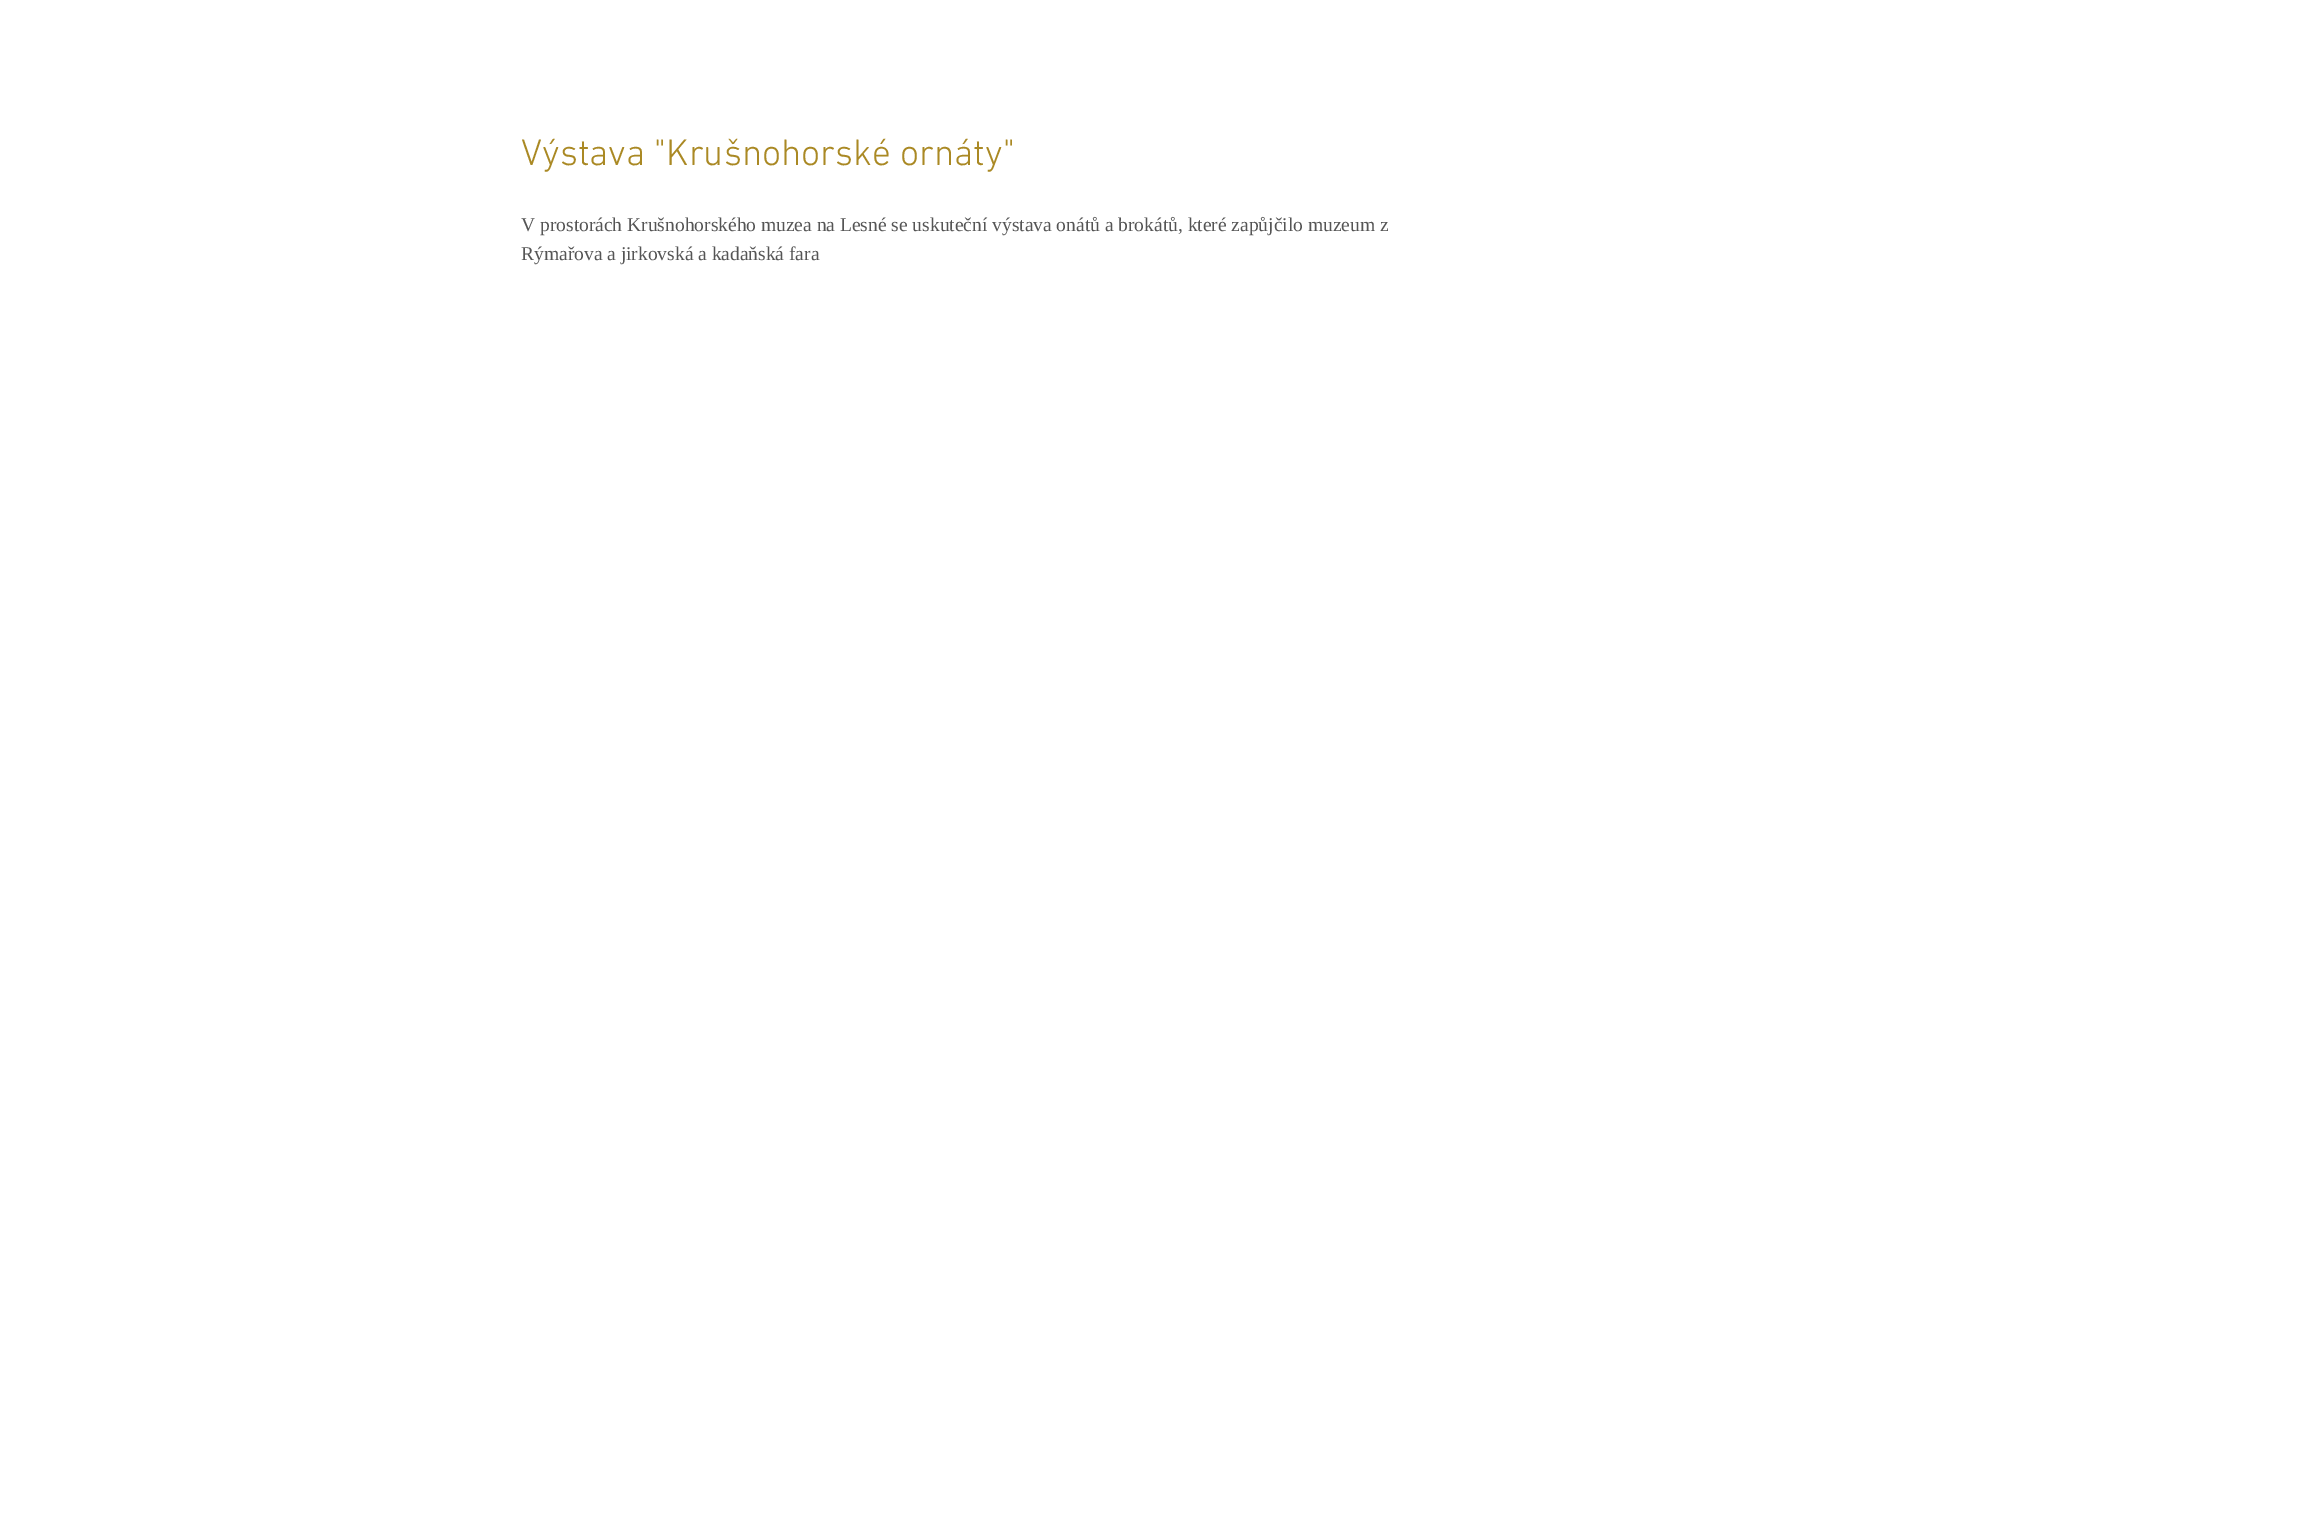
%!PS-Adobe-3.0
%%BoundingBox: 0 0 2306 1533
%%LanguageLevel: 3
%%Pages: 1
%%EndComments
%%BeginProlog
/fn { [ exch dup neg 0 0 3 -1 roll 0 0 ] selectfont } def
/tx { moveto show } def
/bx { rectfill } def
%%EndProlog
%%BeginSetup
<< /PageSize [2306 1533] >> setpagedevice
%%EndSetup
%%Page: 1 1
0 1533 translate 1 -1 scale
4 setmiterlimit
1 setgray
0 0 2306 1533 bx
/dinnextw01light-Light 37.5 fn
0.667 0.537 0.141 setrgbcolor
(Výstava "Krušnohorské ornáty") 521 165 tx
/LiberationSerif-Regular 19.5 fn
0.333 setgray
(V prostorách Krušnohorského muzea na Lesné se uskuteční výstava onátů a brokátů, které zapůjčilo muzeum z) 521 231 tx
(Rýmařova a jirkovská a kadaňská fara) 521 260 tx
showpage
%%EOF
